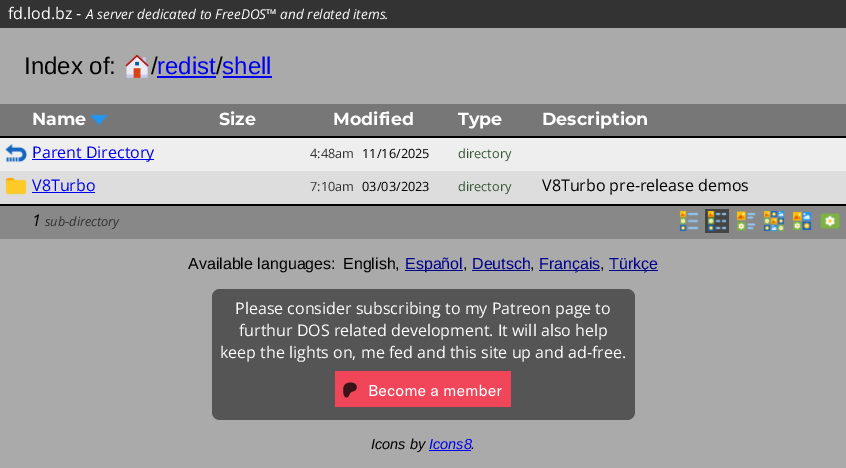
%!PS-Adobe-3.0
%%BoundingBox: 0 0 846 468
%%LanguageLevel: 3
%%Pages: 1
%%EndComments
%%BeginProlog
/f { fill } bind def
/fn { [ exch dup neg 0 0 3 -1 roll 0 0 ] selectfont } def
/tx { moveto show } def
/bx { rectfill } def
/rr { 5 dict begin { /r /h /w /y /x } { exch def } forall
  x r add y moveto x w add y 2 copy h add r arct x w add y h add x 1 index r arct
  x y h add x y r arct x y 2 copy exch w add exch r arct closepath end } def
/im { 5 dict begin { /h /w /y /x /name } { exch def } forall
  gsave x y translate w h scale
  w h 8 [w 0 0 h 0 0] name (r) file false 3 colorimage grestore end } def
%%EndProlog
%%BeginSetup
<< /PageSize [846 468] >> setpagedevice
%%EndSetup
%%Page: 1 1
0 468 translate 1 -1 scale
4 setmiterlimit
0.667 setgray
0 0 846 468 bx
0.2 setgray
0 0 846 28 bx
/OpenSans-Regular 16 fn
1 setgray
(fd.lod.bz -) 8 19 tx
/OpenSans-Italic 13.6 fn
(A server dedicated to FreeDOS™ and related items.) 86 19 tx
/LiberationSans-Regular 24 fn
0 setgray
(Index of:) 24 74 tx
(image0.raw) 125 54 24 24 im
(/) 151 74 tx
0 0 0.933 setrgbcolor
(redist shell) 157 74 tx
157 76 59 2 bx
0 setgray
(/) 216 74 tx
0 0 0.933 setrgbcolor
223 76 49 2 bx
0.467 setgray
0 104 846 32 bx
/Montserrat-Bold 17.5 fn
1 setgray
(Name) 32 125 tx
(image1.raw) 90 114 18 12 im
(Size) 219 125 tx
(Modified) 333 125 tx
(Type) 458 125 tx
(Description) 542 125 tx
0 setgray
0 136 846 2 bx
0.933 setgray
0 138 846 33 bx
(image2.raw) 5 144 23 19 im
0 0 0.933 setrgbcolor
32 159 122 1 bx
/OpenSans-Regular 16 fn
(Parent Directory) 32 158 tx
/OpenSans-Regular 12.75 fn
0.2 setgray
(4:48am) 310 158 tx
0 setgray
(11/16/2025) 362 158 tx
0.2 0.333 0.2 setrgbcolor
(directory) 458 158 tx
0.867 setgray
0 171 846 33 bx
(image3.raw) 5 177 22 18 im
/OpenSans-Regular 16 fn
0 0 0.933 setrgbcolor
(V8Turbo) 32 191 tx
32 192 63 1 bx
/OpenSans-Regular 12.75 fn
0.2 setgray
(7:10am) 310 191 tx
0 setgray
(03/03/2023) 362 191 tx
0.2 0.333 0.2 setrgbcolor
(directory) 458 191 tx
/OpenSans-Regular 16 fn
0 setgray
(V8Turbo pre-release demos) 542 191 tx
0 204 846 2 bx
0.533 setgray
0 206 846 33 bx
/OpenSans-Italic 16 fn
0 setgray
(1) 32 226 tx
/OpenSans-Italic 12.75 fn
0.2 setgray
(sub-directory) 45 226 tx
(image4.raw) 679 210 20 22 im
0.267 setgray
705 209 24 24 bx
(image5.raw) 707 210 20 22 im
(image6.raw) 736 211 20 20 im
(image7.raw) 763 210 22 22 im
(image8.raw) 792 211 20 20 im
(image9.raw) 820 213 20 17 im
/LiberationSans-Regular 16 fn
0 setgray
(Available languages:) 188 269 tx
(English,) 343 269 tx
0 0 0.545 setrgbcolor
405 270 58 1 bx
(Español) 405 269 tx
0 setgray
(,) 463 269 tx
0 0 0.545 setrgbcolor
(Deutsch) 472 269 tx
472 270 58 1 bx
0 setgray
(,) 530 269 tx
0 0 0.545 setrgbcolor
539 270 61 1 bx
(Français) 539 269 tx
0 setgray
(,) 600 269 tx
0 0 0.545 setrgbcolor
609 270 49 1 bx
(Türkçe) 609 269 tx
0.333 setgray
212 289 423 131 8 rr f
/OpenSans-Regular 16 fn
1 setgray
(Please consider subscribing to my Patreon page to) 235 314 tx
(furthur DOS related development. It will also help) 239 336 tx
(keep the lights on, me fed and this site up and ad-free.) 220 358 tx
(image10.raw) 335 371 176 36 im
/LiberationSans-Italic 14.5 fn
0 setgray
(Icons by) 371 449 tx
0 0 0.933 setrgbcolor
(Icons8) 429 449 tx
0 setgray
(.) 471 449 tx
0 0 0.933 setrgbcolor
429 450 42 1 bx
showpage
%%EOF
